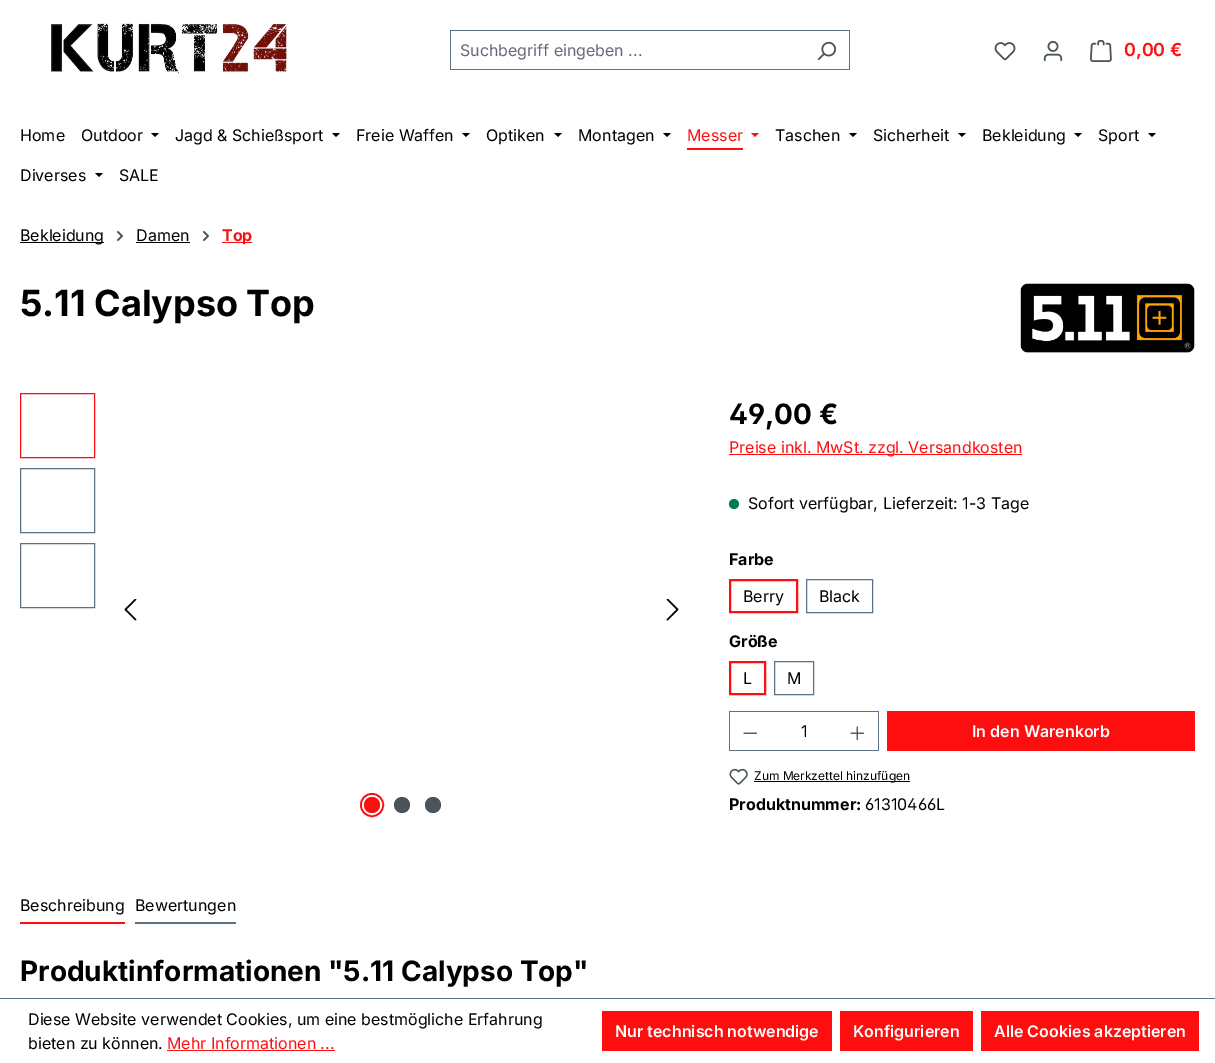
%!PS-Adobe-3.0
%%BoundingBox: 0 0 1215 1063
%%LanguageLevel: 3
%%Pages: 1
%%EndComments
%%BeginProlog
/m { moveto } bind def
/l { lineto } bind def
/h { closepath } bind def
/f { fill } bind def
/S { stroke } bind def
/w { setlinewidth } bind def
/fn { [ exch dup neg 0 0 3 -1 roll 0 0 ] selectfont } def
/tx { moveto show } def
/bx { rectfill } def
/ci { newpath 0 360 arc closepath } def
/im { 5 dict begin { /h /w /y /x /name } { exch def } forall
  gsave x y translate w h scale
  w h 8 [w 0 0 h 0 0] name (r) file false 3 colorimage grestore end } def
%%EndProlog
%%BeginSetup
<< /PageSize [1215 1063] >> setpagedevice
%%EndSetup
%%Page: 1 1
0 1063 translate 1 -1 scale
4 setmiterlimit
1 setgray
0 0 1215 1063 bx
(image0.raw) 51 23 238 51 im
0.373 0.447 0.522 setrgbcolor
450 30 400 1 bx
450 69 354 1 bx
450 30 1 40 bx
/Inter-Regular 16 fn
0.4 0.412 0.467 setrgbcolor
(Suchbegriff eingeben ...) 460 56 tx
0.373 0.447 0.522 setrgbcolor
849 30 1 40 bx
803 69 47 1 bx
(image1.raw) 817 41 20 20 im
(image2.raw) 994 42 22 19 im
(image3.raw) 1043 40 20 22 im
(image4.raw) 1090 40 22 22 im
/Inter-SemiBold 18 fn
1 0.055 0.063 setrgbcolor
(0,00 €) 1124 56 tx
/Inter-Regular 16 fn
0 setgray
(Home) 20 141 tx
(Outdoor) 81 141 tx
151 133 m 159 133 l 155 137 l h f
(Jagd & Schießsport) 175 141 tx
332 133 m 340 133 l 336 137 l h f
(Freie Waffen) 356 141 tx
462 133 m 470 133 l 466 137 l h f
(Optiken) 486 141 tx
554 133 m 562 133 l 558 137 l h f
(Montagen) 578 141 tx
663 133 m 671 133 l 667 137 l h f
1 0.055 0.063 setrgbcolor
(Messer) 687 141 tx
687 148 56 2 bx
751 133 m 759 133 l 755 137 l h f
0 setgray
(Taschen) 775 141 tx
849 133 m 857 133 l 853 137 l h f
(Sicherheit) 873 141 tx
958 133 m 966 133 l 962 137 l h f
(Bekleidung) 982 141 tx
1074 133 m 1082 133 l 1078 137 l h f
(Sport) 1098 141 tx
1148 133 m 1156 133 l 1152 137 l h f
(Diverses) 20 181 tx
95 173 m 103 173 l 99 177 l h f
(SALE) 119 181 tx
20 242 84 1 bx
(Bekleidung) 20 241 tx
(image5.raw) 117 231 6 10 im
(Damen) 136 241 tx
136 242 54 1 bx
(image5.raw) 203 231 6 10 im
1 0.055 0.063 setrgbcolor
222 242 30 1 bx
/Inter-Bold 16 fn
(Top) 222 241 tx
/Inter-Bold 36 fn
0 setgray
(5.11 Calypso Top) 20 316 tx
(image6.raw) 1020 283 175 70 im
1 0.055 0.063 setrgbcolor
20.5 393.5 74 64 rectstroke
0.373 0.447 0.522 setrgbcolor
20.5 468.5 74 64 rectstroke
20.5 543.5 74 64 rectstroke
(image7.raw) 124 599 13 22 im
(image8.raw) 666 599 13 22 im
1 0.055 0.063 setrgbcolor
4 w
372 805 10 ci S
1 setgray
2 w
372 805 9 ci S
1 0.055 0.063 setrgbcolor
372 805 8 ci f
0.29 0.329 0.357 setrgbcolor
402 805 8 ci f
433 805 8 ci f
/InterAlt-Bold 28 fn
0 setgray
(49,00 €) 729 424 tx
1 0.055 0.063 setrgbcolor
729 454 293 1 bx
/Inter-Regular 16 fn
(Preise inkl. MwSt. zzgl. Versandkosten) 729 453 tx
0 0.494 0.306 setrgbcolor
734 504 5 ci f
0 setgray
(Sofort verfügbar, Lieferzeit: 1-3 Tage) 748 509 tx
/Inter-Bold 16 fn
(Farbe) 729 565 tx
1 0.055 0.063 setrgbcolor
730 580 67 32 rectstroke
/Inter-Regular 16 fn
0 setgray
(Berry) 743 602 tx
0.373 0.447 0.522 setrgbcolor
1 w
806.5 579.5 66 33 rectstroke
0 setgray
(Black) 819 602 tx
/Inter-Bold 16 fn
(Größe) 729 647 tx
1 0.055 0.063 setrgbcolor
2 w
730 662 35 32 rectstroke
/Inter-Regular 16 fn
0 setgray
(L) 743 684 tx
0.373 0.447 0.522 setrgbcolor
1 w
774.5 661.5 39 33 rectstroke
0 setgray
(M) 787 684 tx
0.373 0.447 0.522 setrgbcolor
729 711 150 1 bx
729 750 109 1 bx
729 711 1 40 bx
(image9.raw) 743 732 15 2 im
0 setgray
(1) 801 737 tx
0.373 0.447 0.522 setrgbcolor
878 711 1 40 bx
837 750 42 1 bx
(image10.raw) 850 726 15 15 im
1 0.055 0.063 setrgbcolor
887 711 308 40 bx
/Inter-SemiBold 16 fn
1 setgray
(In den Warenkorb) 972 737 tx
(image11.raw) 729 768 19 17 im
0 setgray
754 781 156 1 bx
/Inter-Regular 12 fn
(Zum Merkzettel hinzufügen) 754 780 tx
/Inter-Bold 16 fn
(Produktnummer:) 729 810 tx
/InterAlt-Regular 16 fn
(61310466L) 865 810 tx
1 0.055 0.063 setrgbcolor
20 922 105 2 bx
/Inter-Regular 16 fn
0 setgray
(Beschreibung) 20 911 tx
0.373 0.447 0.522 setrgbcolor
135 922 101 2 bx
0 setgray
(Bewertungen) 135 911 tx
/Inter-Bold 28 fn
(Produktinformationen "5.11 Calypso Top") 20 981 tx
0.373 0.447 0.522 setrgbcolor
0 998 1215 1 bx
/Inter-Regular 16 fn
0 setgray
(Diese Website verwendet Cookies, um eine bestmögliche Erfahrung) 28 1025 tx
(bieten zu können.) 28 1049 tx
1 0.055 0.063 setrgbcolor
(Mehr Informationen ...) 167 1049 tx
167 1050 168 1 bx
602 1011 230 40 bx
/Inter-SemiBold 16 fn
1 setgray
(Nur technisch notwendige) 615 1037 tx
1 0.055 0.063 setrgbcolor
840 1011 133 40 bx
1 setgray
(Konfigurieren) 853 1037 tx
1 0.055 0.063 setrgbcolor
981 1011 218 40 bx
1 setgray
(Alle Cookies akzeptieren) 994 1037 tx
showpage
%%EOF
